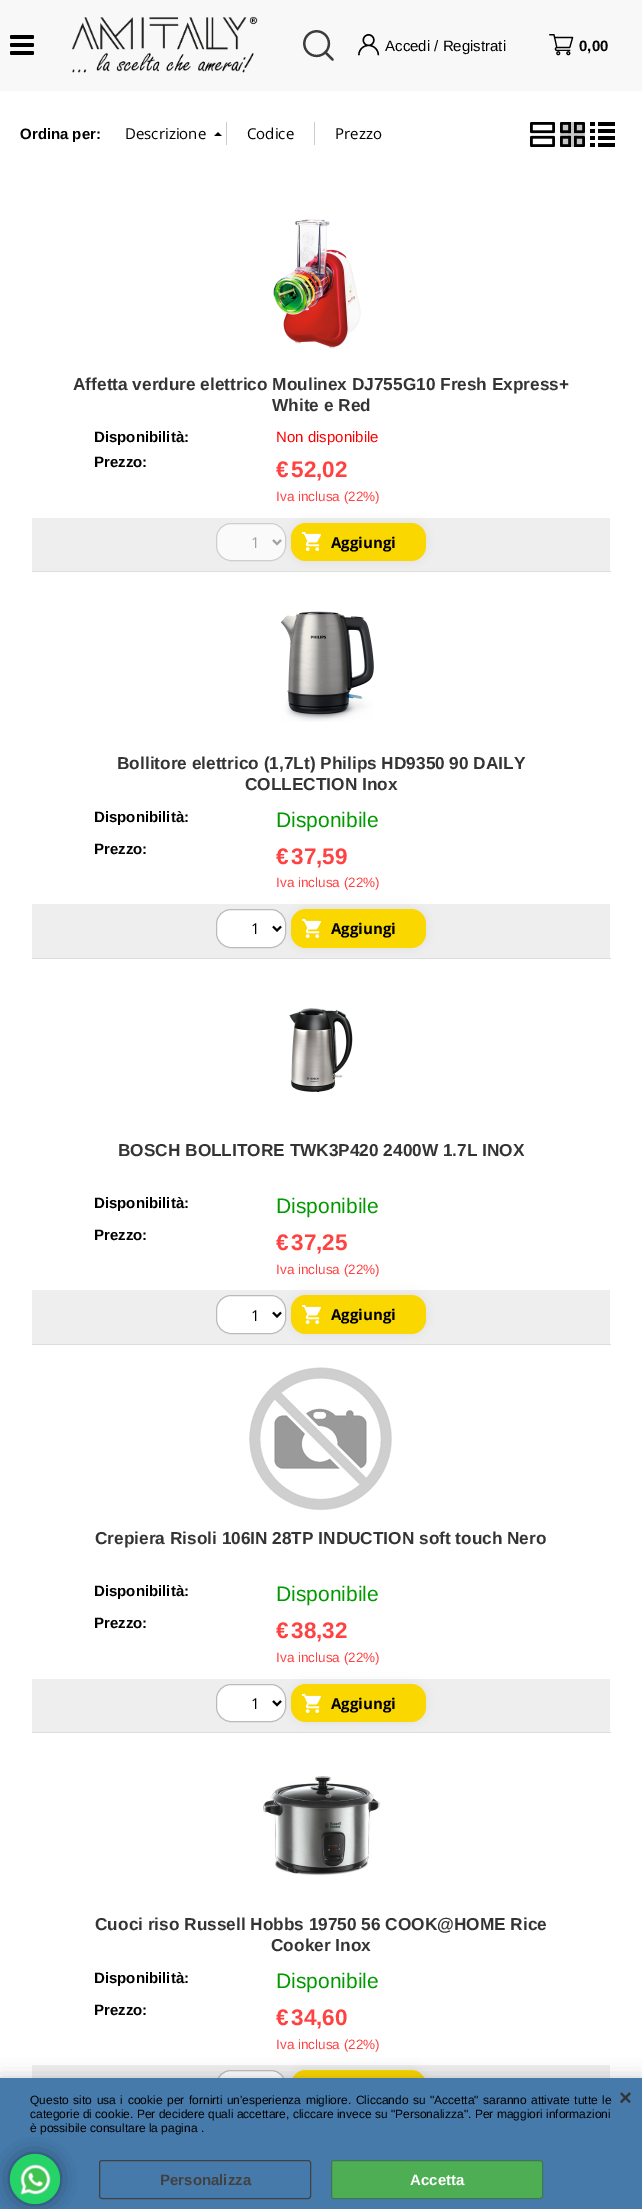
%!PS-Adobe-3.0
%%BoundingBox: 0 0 642 2209
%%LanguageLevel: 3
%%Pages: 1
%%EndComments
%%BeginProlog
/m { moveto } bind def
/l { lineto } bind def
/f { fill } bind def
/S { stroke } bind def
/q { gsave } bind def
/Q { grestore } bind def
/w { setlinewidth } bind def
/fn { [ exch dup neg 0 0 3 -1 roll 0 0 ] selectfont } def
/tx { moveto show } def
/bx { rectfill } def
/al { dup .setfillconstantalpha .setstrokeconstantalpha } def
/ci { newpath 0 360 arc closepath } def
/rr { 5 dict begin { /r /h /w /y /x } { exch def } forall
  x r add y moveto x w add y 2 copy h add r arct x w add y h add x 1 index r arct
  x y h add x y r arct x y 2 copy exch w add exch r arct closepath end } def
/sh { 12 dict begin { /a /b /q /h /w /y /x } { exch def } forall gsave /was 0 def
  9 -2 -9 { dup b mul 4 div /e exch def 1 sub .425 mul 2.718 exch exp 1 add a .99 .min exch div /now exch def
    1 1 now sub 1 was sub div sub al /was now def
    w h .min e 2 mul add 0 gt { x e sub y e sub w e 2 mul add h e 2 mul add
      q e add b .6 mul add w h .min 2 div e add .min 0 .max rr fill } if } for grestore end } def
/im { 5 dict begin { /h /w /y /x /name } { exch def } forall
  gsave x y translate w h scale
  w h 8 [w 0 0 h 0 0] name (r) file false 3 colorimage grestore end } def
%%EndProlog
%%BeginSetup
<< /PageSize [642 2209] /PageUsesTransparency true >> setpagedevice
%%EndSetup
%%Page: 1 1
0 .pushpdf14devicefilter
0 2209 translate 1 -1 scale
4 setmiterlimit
1 setgray
0 0 642 2209 bx
0.973 setgray
0 0 642 91 bx
(image0.raw) 10 35 24 20 im
(image1.raw) 72 16 186 57 im
(image2.raw) 303 30 31 31 im
(image3.raw) 358 34 22 22 im
/LiberationSans-Regular 15 fn
0 setgray
(Accedi / Registrati) 385 51 tx
(image4.raw) 549 34 25 22 im
/LiberationSans-Bold 15 fn
(0,00) 579 51 tx
(Ordina per:) 20 139 tx
(image5.raw) 214 132 8 4 im
0.8 setgray
226 122 1 23 bx
/OpenSans-Regular 15 fn
0 setgray
(Descrizione) 125 139 tx
0.8 setgray
314 122 1 23 bx
0 setgray
(Codice) 247 139 tx
(Prezzo) 335 139 tx
(image6.raw) 530 122 25 25 im
0.776 setgray
560 122 25 25 bx
(image7.raw) 560 122 25 25 im
(image8.raw) 590 122 25 25 im
0.867 setgray
31 571 580 1 bx
1 setgray
31 571 1 1 bx
(image9.raw) 273 219 88 130 im
/LiberationSans-Bold 17.25 fn
0.204 setgray
(Affetta verdure elettrico Moulinex DJ755G10 Fresh Express+) 73 390 tx
(White e Red) 272 411 tx
/LiberationSans-Bold 15 fn
0 setgray
(Disponibilità:) 94 442 tx
/LiberationSans-Regular 15 fn
1 0 0 setrgbcolor
(Non disponibile) 276 442 tx
/LiberationSans-Bold 15 fn
0 setgray
(Prezzo:) 94 467 tx
/LiberationSans-Bold 22.5 fn
1 0.255 0.255 setrgbcolor
(€) 276 477 tx
(52,02) 291 477 tx
/LiberationSans-Regular 13.5 fn
(Iva inclusa \(22%\)) 276 501 tx
0.933 setgray
32 518 578 53 bx
0.694 setgray
290 522 137 40 16 5 0.25 sh
0.7 al
1 setgray
216 523 70 38 15 rr f
0.733 setgray
216.5 523.5 69 37 14.5 rr S
1 al
0.631 setgray
2 w
273 540 m 277 544 l 281 540 l S
/OpenSans-Regular 15 fn
(1) 251 548 tx
0.984 0.843 0 setrgbcolor
291 523 135 38 15 rr f
(image10.raw) 302 532 19 19 im
/OpenSans-Bold 15 fn
0 setgray
(Aggiungi) 331 548 tx
0.867 setgray
31 958 580 1 bx
1 setgray
31 958 1 1 bx
(image11.raw) 281 611 93 111 im
/LiberationSans-Bold 17.25 fn
0.204 setgray
(Bollitore elettrico \(1,7Lt\) Philips HD9350 90 DAILY) 117 769 tx
(COLLECTION Inox) 245 790 tx
/LiberationSans-Bold 15 fn
0 setgray
(Disponibilità:) 94 822 tx
/LiberationSans-Regular 21 fn
0 0.6 0 setrgbcolor
(Disponibile) 276 827 tx
/LiberationSans-Bold 15 fn
0 setgray
(Prezzo:) 94 854 tx
/LiberationSans-Bold 22.5 fn
1 0.255 0.255 setrgbcolor
(€) 276 864 tx
(37,59) 291 864 tx
/LiberationSans-Regular 13.5 fn
(Iva inclusa \(22%\)) 276 887 tx
0.933 setgray
32 904 578 54 bx
1 setgray
216.5 909.5 69 38 14.5 rr q f Q
0.733 setgray
1 w
S
0 setgray
2 w
273 926.5 m 277 930.5 l 281 926.5 l S
/OpenSans-Regular 15 fn
(1) 251 934 tx
0.694 setgray
290 908 137 41 16 5 0.25 sh
0.984 0.843 0 setrgbcolor
291 909 135 39 15 rr f
(image10.raw) 302 919 19 19 im
/OpenSans-Bold 15 fn
0 setgray
(Aggiungi) 331 934 tx
0.867 setgray
31 1344 580 1 bx
1 setgray
31 1344 1 1 bx
(image12.raw) 289 1008 64 84 im
/LiberationSans-Bold 17.25 fn
0.204 setgray
(BOSCH BOLLITORE TWK3P420 2400W 1.7L INOX) 118 1156 tx
/LiberationSans-Bold 15 fn
0 setgray
(Disponibilità:) 94 1208 tx
/LiberationSans-Regular 21 fn
0 0.6 0 setrgbcolor
(Disponibile) 276 1213 tx
/LiberationSans-Bold 15 fn
0 setgray
(Prezzo:) 94 1240 tx
/LiberationSans-Bold 22.5 fn
1 0.255 0.255 setrgbcolor
(€) 276 1250 tx
(37,25) 291 1250 tx
/LiberationSans-Regular 13.5 fn
(Iva inclusa \(22%\)) 276 1274 tx
0.933 setgray
32 1290 578 54 bx
1 setgray
216.5 1295.5 69 38 14.5 rr q f Q
0.733 setgray
1 w
S
0 setgray
2 w
273 1312.5 m 277 1316.5 l 281 1312.5 l S
/OpenSans-Regular 15 fn
(1) 251 1321 tx
0.694 setgray
290 1294 137 41 16 5 0.25 sh
0.984 0.843 0 setrgbcolor
291 1295 135 39 15 rr f
(image10.raw) 302 1305 19 19 im
/OpenSans-Bold 15 fn
0 setgray
(Aggiungi) 331 1320 tx
0.867 setgray
31 1732 580 1 bx
1 setgray
31 1732 1 1 bx
(image13.raw) 249 1367 143 143 im
/LiberationSans-Bold 17.25 fn
0.204 setgray
(Crepiera Risoli 106IN 28TP INDUCTION soft touch Nero) 95 1544 tx
/LiberationSans-Bold 15 fn
0 setgray
(Disponibilità:) 94 1596 tx
/LiberationSans-Regular 21 fn
0 0.6 0 setrgbcolor
(Disponibile) 276 1601 tx
/LiberationSans-Bold 15 fn
0 setgray
(Prezzo:) 94 1628 tx
/LiberationSans-Bold 22.5 fn
1 0.255 0.255 setrgbcolor
(€) 276 1638 tx
(38,32) 291 1638 tx
/LiberationSans-Regular 13.5 fn
(Iva inclusa \(22%\)) 276 1662 tx
0.933 setgray
32 1679 578 53 bx
1 setgray
216.5 1684.5 69 37 14.5 rr q f Q
0.733 setgray
1 w
S
0 setgray
2 w
273 1701 m 277 1705 l 281 1701 l S
/OpenSans-Regular 15 fn
(1) 251 1709 tx
0.694 setgray
290 1683 137 40 16 5 0.25 sh
0.984 0.843 0 setrgbcolor
291 1684 135 38 15 rr f
(image10.raw) 302 1694 19 19 im
/OpenSans-Bold 15 fn
0 setgray
(Aggiungi) 331 1709 tx
(image14.raw) 262 1776 119 100 im
/LiberationSans-Bold 17.25 fn
0.204 setgray
(Cuoci riso Russell Hobbs 19750 56 COOK@HOME Rice) 95 1930 tx
(Cooker Inox) 271 1951 tx
/LiberationSans-Bold 15 fn
0 setgray
(Disponibilità:) 94 1983 tx
/LiberationSans-Regular 21 fn
0 0.6 0 setrgbcolor
(Disponibile) 276 1988 tx
/LiberationSans-Bold 15 fn
0 setgray
(Prezzo:) 94 2015 tx
/LiberationSans-Bold 22.5 fn
1 0.255 0.255 setrgbcolor
(€) 276 2025 tx
(34,60) 291 2025 tx
/LiberationSans-Regular 13.5 fn
(Iva inclusa \(22%\)) 276 2049 tx
0.933 setgray
32 2065 578 13 bx
1 setgray
216.5 2070.5 69 38 14.5 rr q f Q
0.733 setgray
1 w
S
0.694 setgray
290 2069 137 41 16 5 0.25 sh
0.984 0.843 0 setrgbcolor
291 2070 135 39 15 rr f
0 setgray
0 2078 642 131 0 9 0.2 sh
0.271 0.478 0.671 setrgbcolor
0 2078 642 131 bx
/LiberationSans-Regular 12 fn
0 setgray
30 2104 m 1.25 0 32 (Questo sito usa i cookie per fornirti un'esperienza migliore. Cliccando su "Accetta" saranno attivate tutte le) widthshow
(categorie di cookie. Per decidere quali accettare, cliccare invece su "Personalizza". Per maggiori informazioni) 30 2118 tx
(è possibile consultare la pagina .) 30 2132 tx
/LiberationSans-Bold 22 fn
0.204 setgray
(×) 619 2105 tx
0.259 0.255 0.255 setrgbcolor
99.5 2160.5 211 38 2.5 rr S
/LiberationSans-Bold 15 fn
(Personalizza) 160 2185 tx
0.306 0.682 0.329 setrgbcolor
331.5 2160.5 211 38 2.5 rr q f Q
0.247 0.467 0.333 setrgbcolor
S
1 setgray
(Accetta) 410 2185 tx
0 setgray
15 2159 40 40 20 10 0.7 sh
0.145 0.827 0.4 setrgbcolor
35 2179 25 ci f
(image15.raw) 20 2164 31 31 im
.poppdf14devicefilter showpage
%%EOF
